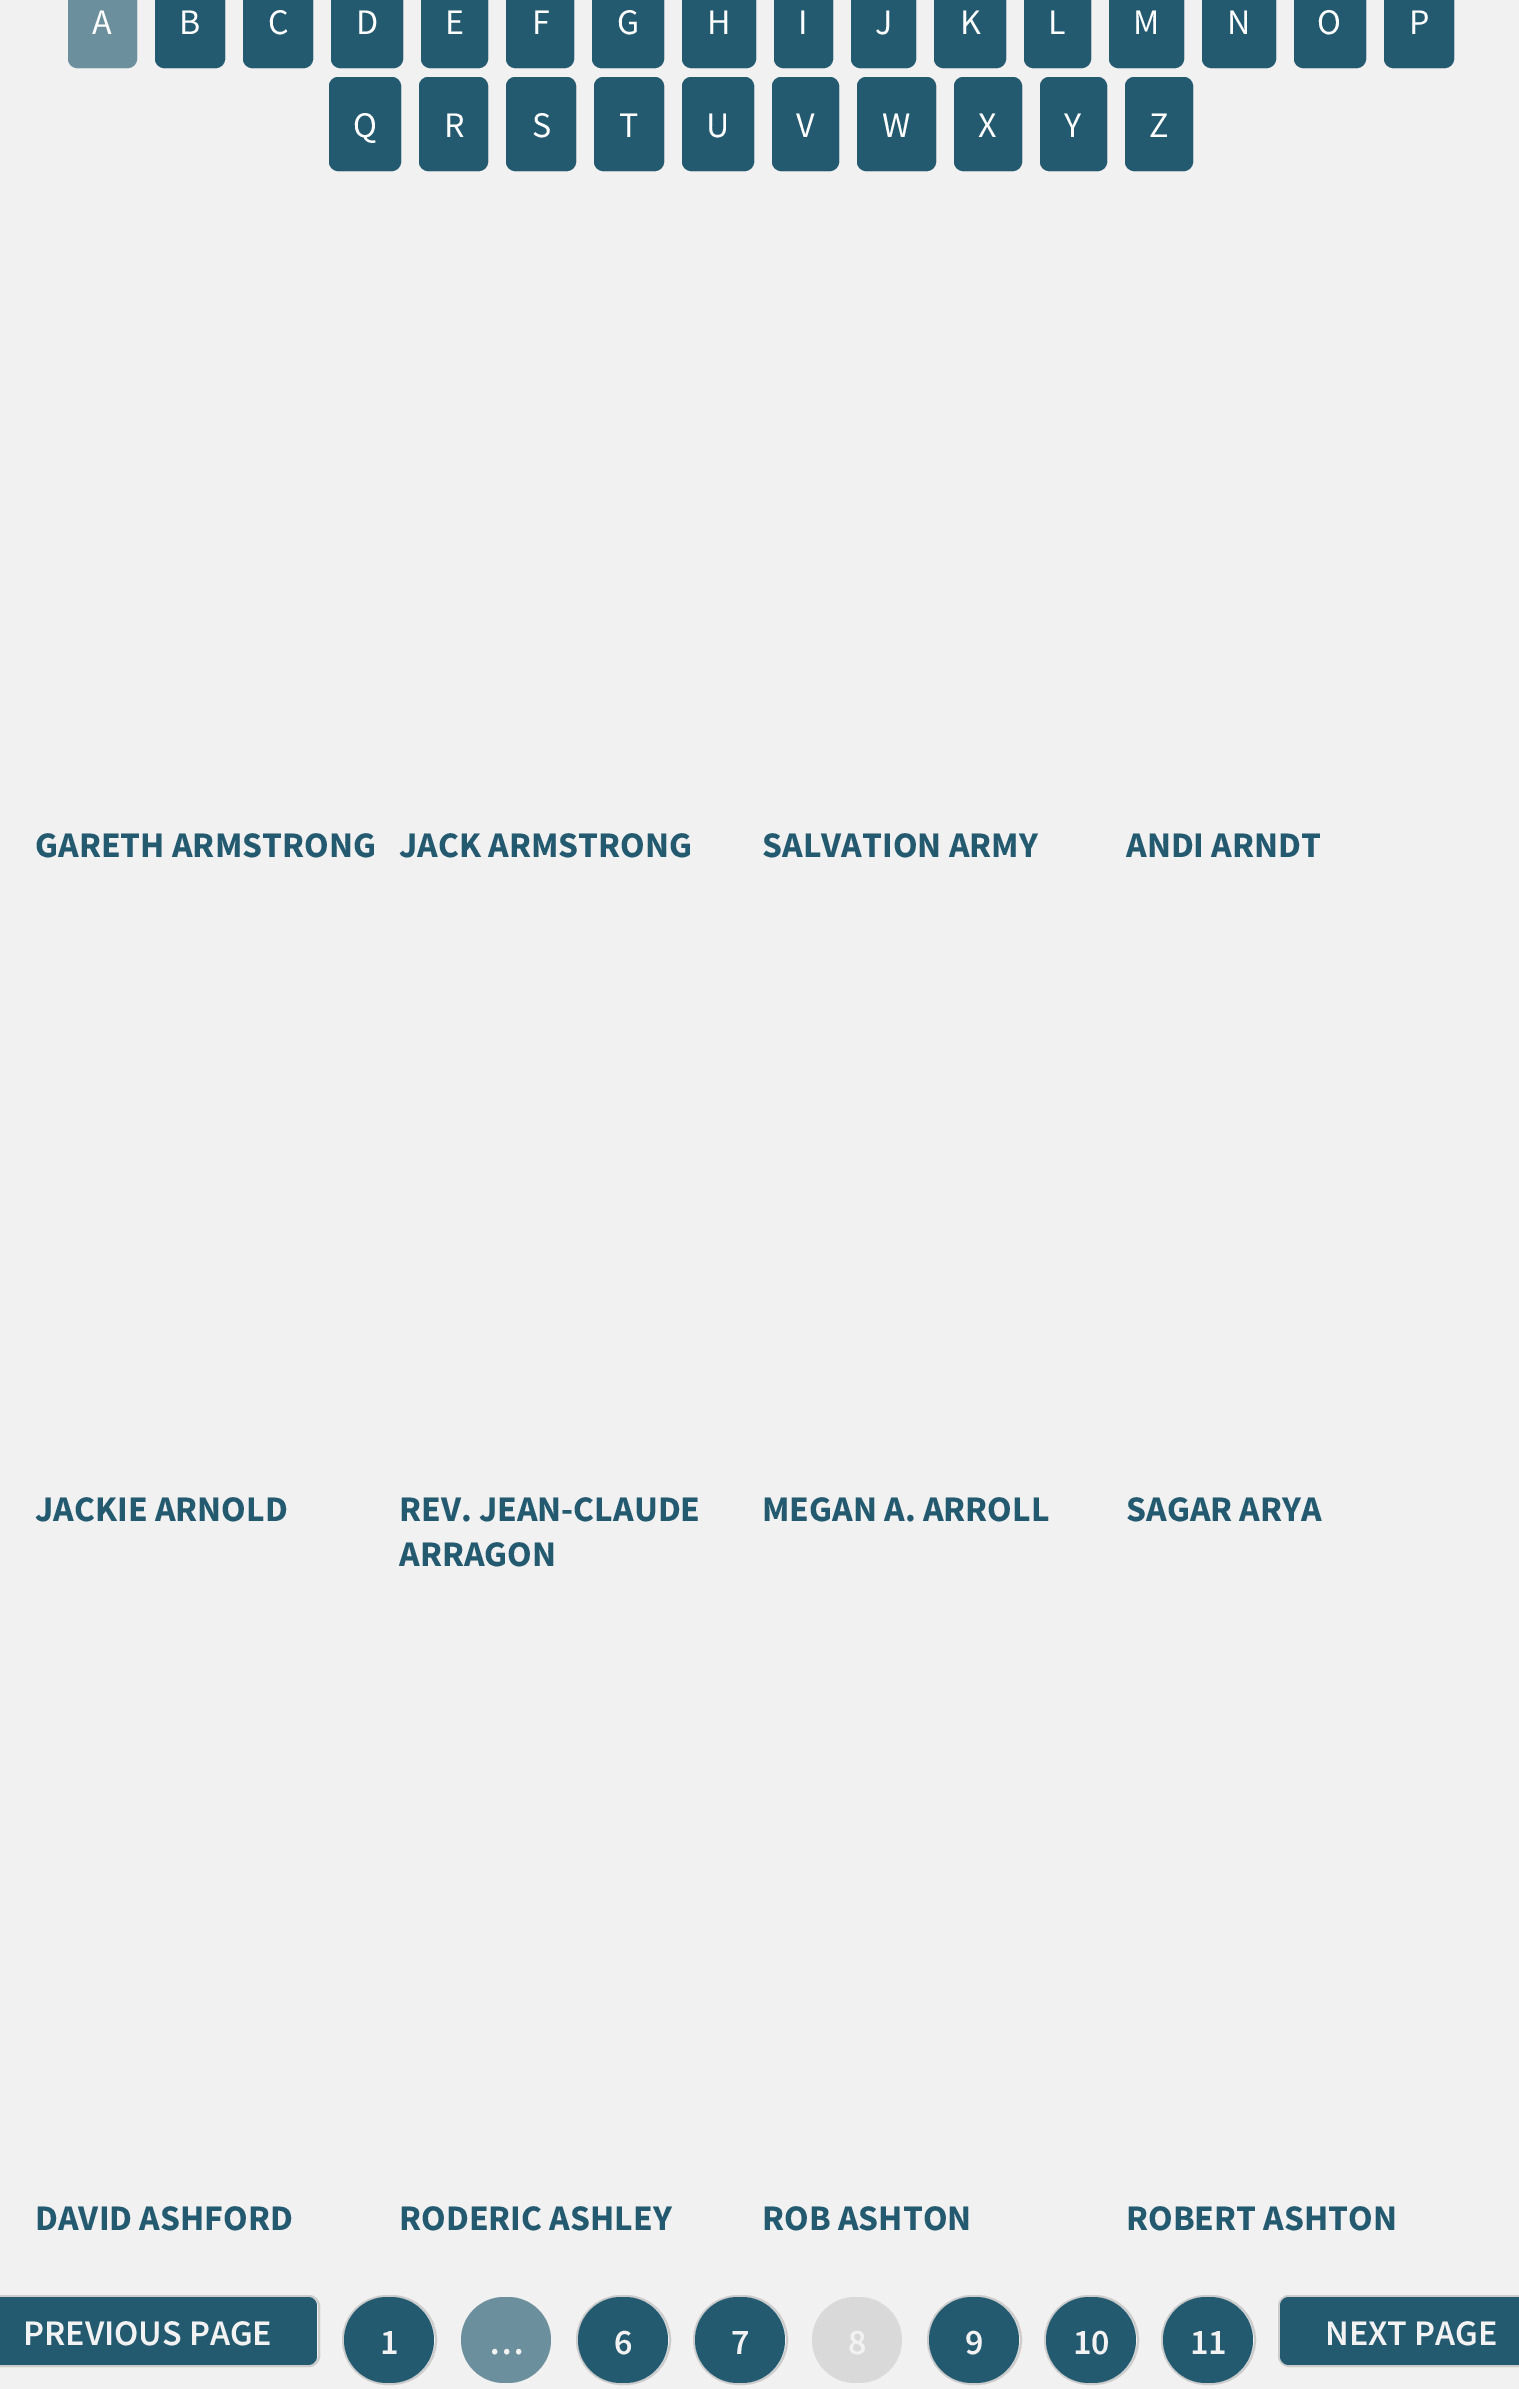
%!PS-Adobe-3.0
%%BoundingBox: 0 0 1519 2389
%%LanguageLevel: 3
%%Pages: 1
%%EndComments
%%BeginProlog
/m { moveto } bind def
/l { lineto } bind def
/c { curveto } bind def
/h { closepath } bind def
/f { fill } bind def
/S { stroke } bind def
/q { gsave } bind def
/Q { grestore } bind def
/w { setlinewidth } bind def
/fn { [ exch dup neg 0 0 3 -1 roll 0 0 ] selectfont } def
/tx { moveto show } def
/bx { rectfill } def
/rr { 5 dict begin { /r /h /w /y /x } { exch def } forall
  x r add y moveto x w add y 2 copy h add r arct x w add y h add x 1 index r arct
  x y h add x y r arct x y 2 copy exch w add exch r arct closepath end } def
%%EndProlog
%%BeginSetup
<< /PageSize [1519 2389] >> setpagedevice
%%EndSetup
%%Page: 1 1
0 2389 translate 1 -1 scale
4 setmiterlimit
0.945 setgray
0 0 1519 2389 bx
0.424 0.561 0.616 setrgbcolor
69 -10 67 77 8 rr q f Q
2 w
S
/SourceSansPro-Regular 36 fn
1 setgray
(A) 92 34 tx
0.141 0.353 0.439 setrgbcolor
156 -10 68 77 8 rr q f Q
S
1 setgray
(B) 179 34 tx
0.141 0.353 0.439 setrgbcolor
244 -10 68 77 8 rr q f Q
S
1 setgray
(C) 268 34 tx
0.141 0.353 0.439 setrgbcolor
332 -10 70 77 8 rr q f Q
S
1 setgray
(D) 356 34 tx
0.141 0.353 0.439 setrgbcolor
422 -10 65 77 8 rr q f Q
S
1 setgray
(E) 445 34 tx
0.141 0.353 0.439 setrgbcolor
507 -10 66 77 8 rr q f Q
S
1 setgray
(F) 532 34 tx
0.141 0.353 0.439 setrgbcolor
593 -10 70 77 8 rr q f Q
S
1 setgray
(G) 617 34 tx
0.141 0.353 0.439 setrgbcolor
683 -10 72 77 8 rr q f Q
S
1 setgray
(H) 707 34 tx
0.141 0.353 0.439 setrgbcolor
775 -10 57 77 8 rr q f Q
S
1 setgray
(I) 798 34 tx
0.141 0.353 0.439 setrgbcolor
852 -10 63 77 8 rr q f Q
S
1 setgray
(J) 875 34 tx
0.141 0.353 0.439 setrgbcolor
935 -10 70 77 8 rr q f Q
S
1 setgray
(K) 960 34 tx
0.141 0.353 0.439 setrgbcolor
1025 -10 65 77 8 rr q f Q
S
1 setgray
(L) 1048 34 tx
0.141 0.353 0.439 setrgbcolor
1110 -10 73 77 8 rr q f Q
S
1 setgray
(M) 1133 34 tx
0.141 0.353 0.439 setrgbcolor
1203 -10 72 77 8 rr q f Q
S
1 setgray
(N) 1227 34 tx
0.141 0.353 0.439 setrgbcolor
1295 -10 70 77 8 rr q f Q
S
1 setgray
(O) 1317 34 tx
0.141 0.353 0.439 setrgbcolor
1385 -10 68 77 8 rr q f Q
S
1 setgray
(P) 1409 34 tx
0.141 0.353 0.439 setrgbcolor
330 78 70 92 8 rr q f Q
S
1 setgray
(Q) 353 137 tx
0.141 0.353 0.439 setrgbcolor
420 78 67 92 8 rr q f Q
S
1 setgray
(R) 444 137 tx
0.141 0.353 0.439 setrgbcolor
507 78 68 92 8 rr q f Q
S
1 setgray
(S) 532 137 tx
0.141 0.353 0.439 setrgbcolor
595 78 68 92 8 rr q f Q
S
1 setgray
(T) 619 137 tx
0.141 0.353 0.439 setrgbcolor
683 78 70 92 8 rr q f Q
S
1 setgray
(U) 706 137 tx
0.141 0.353 0.439 setrgbcolor
773 78 65 92 8 rr q f Q
S
1 setgray
(V) 796 137 tx
0.141 0.353 0.439 setrgbcolor
858 78 77 92 8 rr q f Q
S
1 setgray
(W) 882 137 tx
0.141 0.353 0.439 setrgbcolor
955 78 66 92 8 rr q f Q
S
1 setgray
(X) 978 137 tx
0.141 0.353 0.439 setrgbcolor
1041 78 65 92 8 rr q f Q
S
1 setgray
(Y) 1064 137 tx
0.141 0.353 0.439 setrgbcolor
1126 78 66 92 8 rr q f Q
S
1 setgray
(Z) 1149 137 tx
/SourceSansPro-Bold 36 fn
0.141 0.353 0.439 setrgbcolor
(GARETH ARMSTRONG) 35 857 tx
(JACK ARMSTRONG) 399 857 tx
(SALVATION ARMY) 762 857 tx
(ANDI ARNDT) 1126 857 tx
(JACKIE ARNOLD) 35 1521 tx
(REV. JEAN-CLAUDE) 399 1521 tx
(ARRAGON) 399 1566 tx
(MEGAN A. ARROLL) 762 1521 tx
(SAGAR ARYA) 1126 1521 tx
(DAVID ASHFORD) 35 2230 tx
(RODERIC ASHLEY) 399 2230 tx
(ROB ASHTON) 762 2230 tx
(ROBERT ASHTON) 1126 2230 tx
0.8 setgray
-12 2296 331 70 10 rr S
0.141 0.353 0.439 setrgbcolor
0 2297 m 308 2297 l 313 2297 317 2301 317 2306 c 317 2356 l 317 2361 313 2365 308 2365 c 0 2365 l h f
/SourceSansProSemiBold-SemiBold 36 fn
0.949 setgray
(PREVIOUS PAGE) 23 2345 tx
0.8 setgray
343 2296 93 88 44 rr S
0.141 0.353 0.439 setrgbcolor
344 2297 90 86 43 rr f
0.949 setgray
(1) 380 2354 tx
0.424 0.561 0.616 setrgbcolor
461 2297 90 86 43 rr f
0.949 setgray
(…) 489 2354 tx
0.8 setgray
577 2296 93 88 44 rr S
0.141 0.353 0.439 setrgbcolor
578 2297 90 86 43 rr f
0.949 setgray
(6) 614 2354 tx
0.8 setgray
694 2296 93 88 44 rr S
0.141 0.353 0.439 setrgbcolor
695 2297 90 86 43 rr f
0.949 setgray
(7) 731 2354 tx
0.851 setgray
812 2297 90 86 43 rr f
0.949 setgray
(8) 848 2354 tx
0.8 setgray
928 2296 93 88 44 rr S
0.141 0.353 0.439 setrgbcolor
929 2297 90 86 43 rr f
0.949 setgray
(9) 965 2354 tx
0.8 setgray
1045 2296 93 88 44 rr S
0.141 0.353 0.439 setrgbcolor
1046 2297 90 86 43 rr f
0.949 setgray
(10) 1073 2354 tx
0.8 setgray
1162 2296 93 88 44 rr S
0.141 0.353 0.439 setrgbcolor
1163 2297 90 86 43 rr f
0.949 setgray
(11) 1190 2354 tx
0.8 setgray
1279 2296 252 70 10 rr S
0.141 0.353 0.439 setrgbcolor
1289 2297 m 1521 2297 l 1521 2365 l 1289 2365 l 1284 2365 1280 2361 1280 2356 c 1280 2306 l 1280 2301 1284 2297 1289 2297 c h f
0.949 setgray
(NEXT PAGE) 1325 2345 tx
showpage
%%EOF
